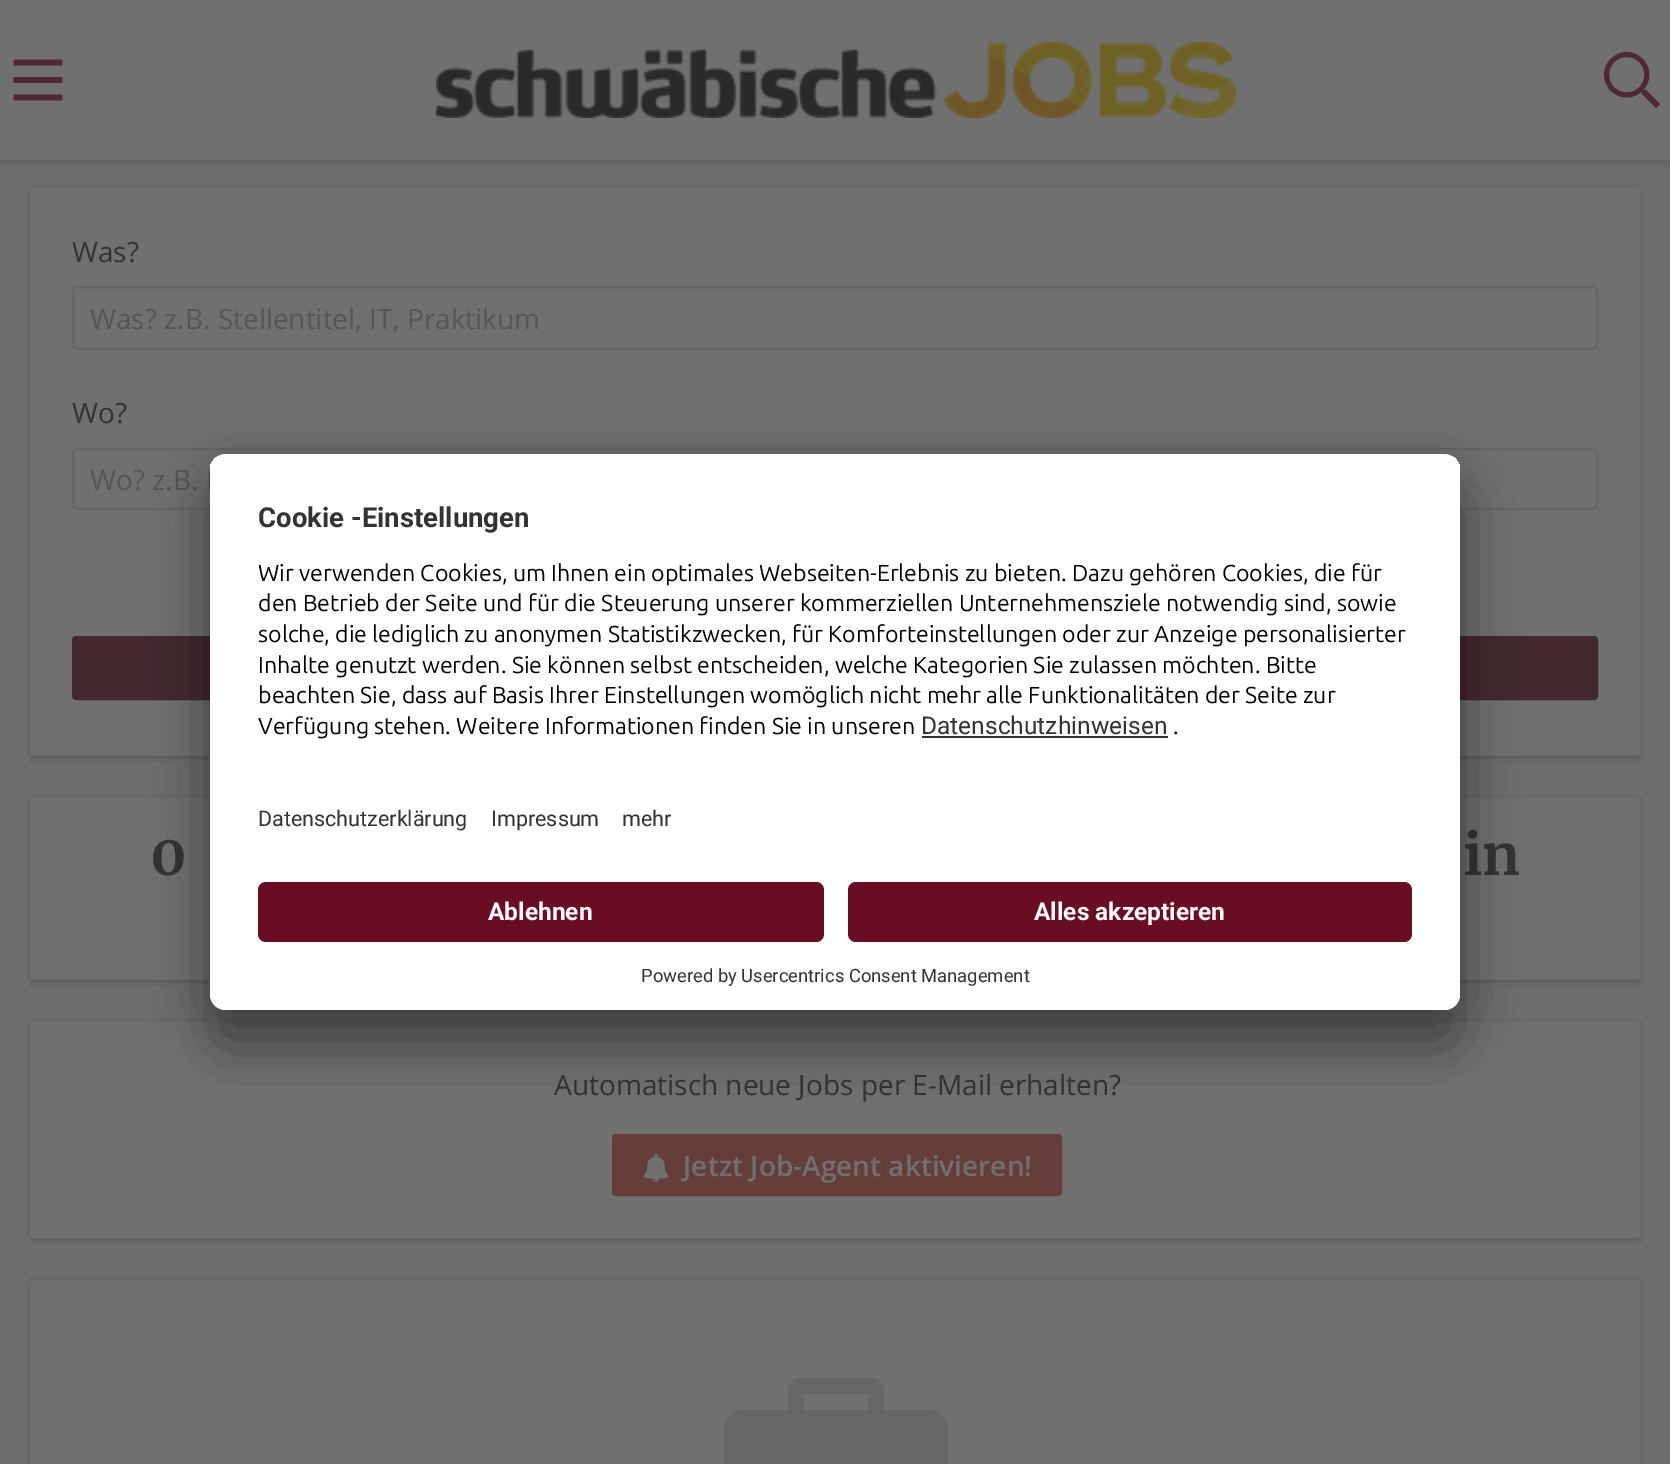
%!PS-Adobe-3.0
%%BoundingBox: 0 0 1670 1464
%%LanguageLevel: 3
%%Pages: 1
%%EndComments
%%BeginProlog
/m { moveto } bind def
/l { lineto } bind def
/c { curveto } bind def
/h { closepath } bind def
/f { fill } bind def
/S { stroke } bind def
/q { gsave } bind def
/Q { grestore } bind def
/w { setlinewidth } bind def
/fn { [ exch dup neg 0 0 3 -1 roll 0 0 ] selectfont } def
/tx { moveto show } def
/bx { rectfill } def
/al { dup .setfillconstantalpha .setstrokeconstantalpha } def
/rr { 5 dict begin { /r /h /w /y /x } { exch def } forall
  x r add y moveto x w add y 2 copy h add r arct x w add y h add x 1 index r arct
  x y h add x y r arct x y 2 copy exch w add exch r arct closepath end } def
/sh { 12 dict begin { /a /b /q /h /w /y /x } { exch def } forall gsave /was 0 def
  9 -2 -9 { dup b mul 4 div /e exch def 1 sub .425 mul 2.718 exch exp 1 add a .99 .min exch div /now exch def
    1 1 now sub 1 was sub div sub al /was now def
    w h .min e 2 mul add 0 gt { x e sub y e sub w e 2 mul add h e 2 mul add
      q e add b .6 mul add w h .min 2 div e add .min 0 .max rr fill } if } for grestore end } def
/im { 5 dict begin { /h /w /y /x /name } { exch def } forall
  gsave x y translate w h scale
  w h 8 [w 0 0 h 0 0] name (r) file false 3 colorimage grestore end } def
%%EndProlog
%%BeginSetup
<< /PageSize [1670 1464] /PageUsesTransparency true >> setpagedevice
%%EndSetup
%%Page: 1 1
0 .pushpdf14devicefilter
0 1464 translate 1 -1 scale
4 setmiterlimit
0.427 setgray
0 0 1670 1464 bx
0.31 setgray
0 4 1670 160 0 4 0.5 sh
0.439 setgray
0 0 1670 160 bx
(image0.raw) 13 59 50 42 im
(image1.raw) 436 42 800 76 im
(image2.raw) 1604 52 56 56 im
0.141 setgray
30 190 1610 568 4 3 0.25 sh
0.439 setgray
30 188 1610 568 4 rr f
/OpenSans-Regular 28 fn
0.2 setgray
(Was?) 72 262 tx
0.4 setgray
2 w
73 287 1524 62 5 rr S
0.337 setgray
(Was? z.B. Stellentitel, IT, Praktikum) 90 329 tx
0.2 setgray
(Wo?) 72 423 tx
0.4 setgray
73 449 1524 60 5 rr S
0.337 setgray
(Wo? z.B. F) 90 490 tx
0.263 0.157 0.18 setrgbcolor
73 637 1524 62 3 rr q f Q
S
0.141 setgray
30 800 1610 182 4 3 0.25 sh
0.439 setgray
30 798 1610 182 4 rr f
/Merriweather-Bold 56 fn
0.2 setgray
(0) 150 875 tx
(in) 1463 875 tx
0.141 setgray
30 1024 1610 216 4 3 0.25 sh
0.439 setgray
30 1022 1610 216 4 rr f
30 1235 1 1 bx
/OpenSans-Regular 28 fn
0.2 setgray
(Automatisch neue Jobs per E-Mail erhalten?) 554 1095 tx
0.396 0.239 0.231 setrgbcolor
613 1135 448 60 3 rr q f Q
S
(image3.raw) 643 1154 26 28 im
/OpenSans-SemiBold 28 fn
0.439 setgray
(Jetzt Job-Agent aktivieren!) 683 1176 tx
0.141 setgray
30 1282 1610 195 4 3 0.25 sh
0.439 setgray
30 1280 1610 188 4 rr f
(image4.raw) 724 1378 224 86 im
0 setgray
210 494 1250 556 16 28 0.3 sh
210 464 1250 556 16 26 0.22 sh
1 setgray
210 454 1250 556 16 rr f
q
210 454 1250 556 16 rr clip newpath
226 454 m 1444 454 l 1453 454 1460 461 1460 470 c 1460 866 l 210 866 l 210 470 l 210 461 217 454 226 454 c h clip newpath
210 456 1250 410 bx
Q
/Roboto-Bold 27.5 fn
0.2 setgray
(Cookie -Einstellungen) 258 527 tx
/Ubuntu-Regular 23.1 fn
0 setgray
(Wir verwenden Cookies, um Ihnen ein optimales Webseiten-Erlebnis zu bieten. Dazu gehören Cookies, die für) 258 581 tx
(den Betrieb der Seite und für die Steuerung unserer kommerziellen Unternehmensziele notwendig sind, sowie) 258 611 tx
(solche, die lediglich zu anonymen Statistikzwecken, für Komforteinstellungen oder zur Anzeige personalisierter) 258 642 tx
(Inhalte genutzt werden. Sie können selbst entscheiden, welche Kategorien Sie zulassen möchten. Bitte) 258 673 tx
(beachten Sie, dass auf Basis Ihrer Einstellungen womöglich nicht mehr alle Funktionalitäten der Seite zur) 258 703 tx
(Verfügung stehen. Weitere Informationen finden Sie in unseren) 258 734 tx
/Roboto-Regular 24.5 fn
0.2 setgray
(Datenschutzhinweisen) 921 734 tx
0.188 setgray
922 736 246 2 bx
/Ubuntu-Regular 23.1 fn
0 setgray
(.) 1173 734 tx
/Roboto-Regular 21.5 fn
0.2 setgray
(Datenschutzerklärung) 258 826 tx
(Impressum) 491 826 tx
(mehr) 622 826 tx
1 setgray
210 866 m 1460 866 l 1460 994 l 1460 1003 1453 1010 1444 1010 c 226 1010 l 217 1010 210 1003 210 994 c h f
0.412 0.051 0.137 setrgbcolor
258 882 566 60 8 rr f
/Roboto-Bold 24.5 fn
0.98 setgray
(Ablehnen) 488 920 tx
0.412 0.051 0.137 setrgbcolor
848 882 564 60 8 rr f
0.98 setgray
(Alles akzeptieren) 1034 920 tx
/Roboto-Regular 18.4 fn
0.2 setgray
(Powered by Usercentrics Consent Management) 641 982 tx
.poppdf14devicefilter showpage
%%EOF
